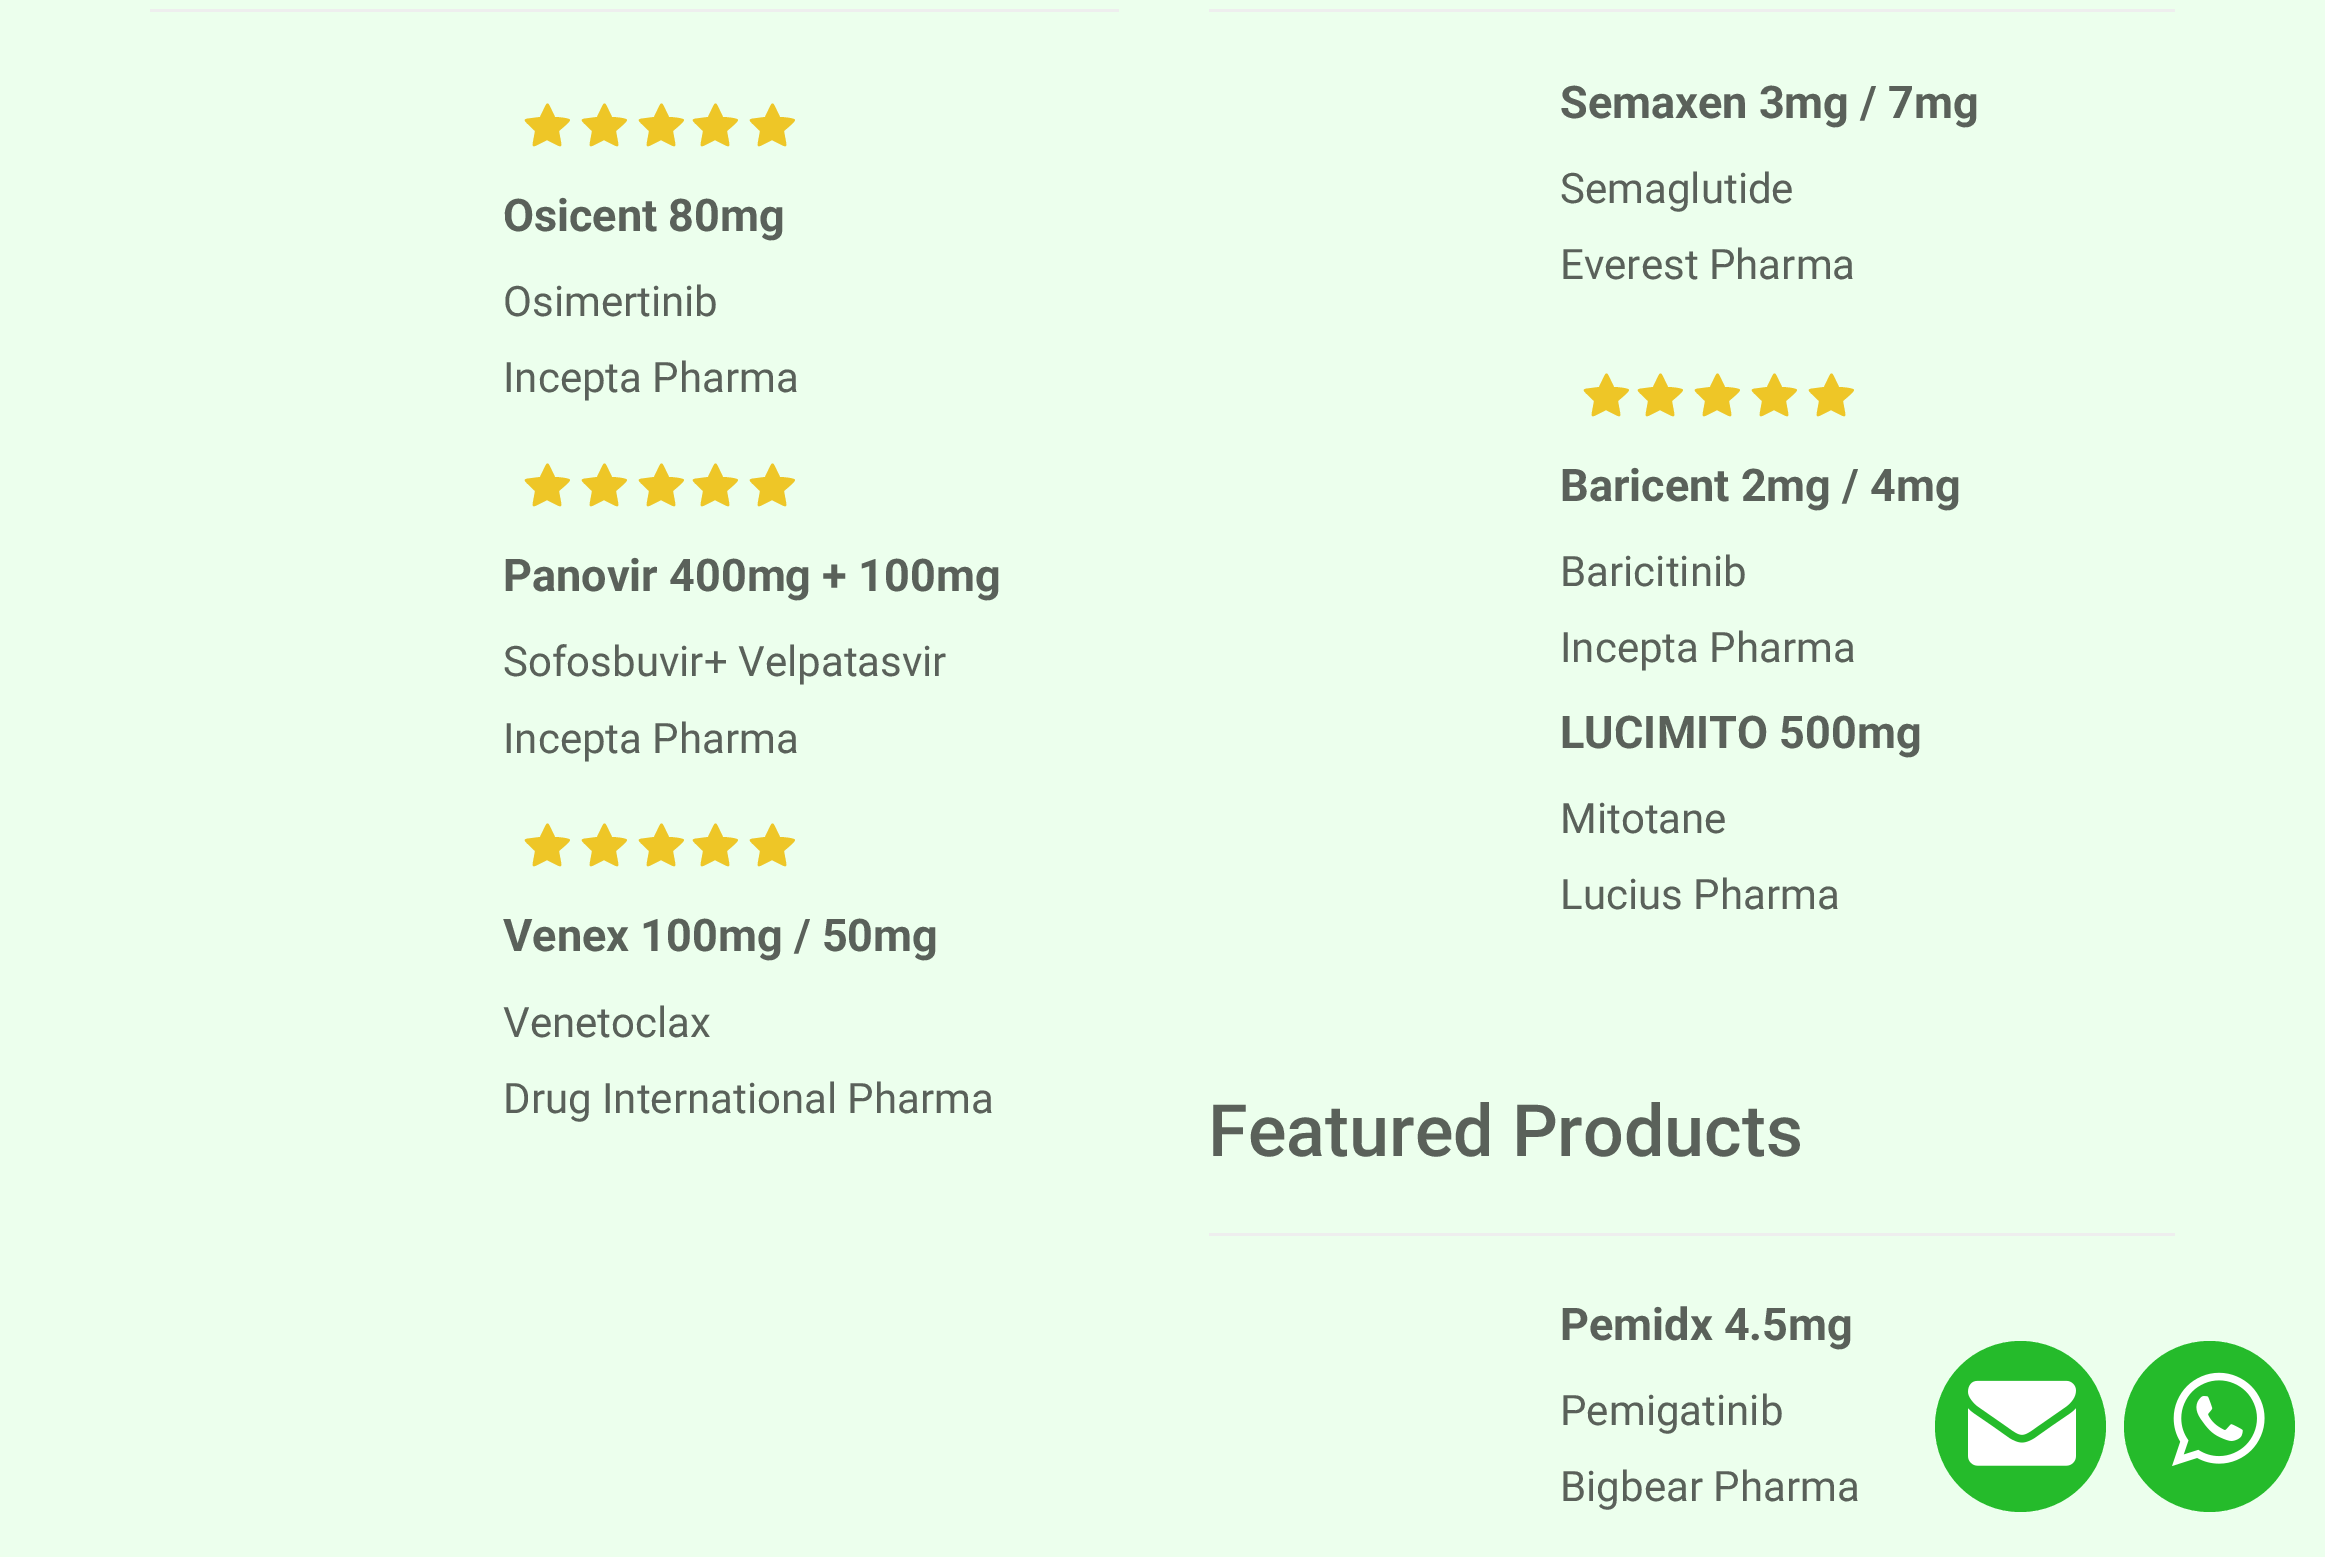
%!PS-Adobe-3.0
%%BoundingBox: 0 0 2325 1557
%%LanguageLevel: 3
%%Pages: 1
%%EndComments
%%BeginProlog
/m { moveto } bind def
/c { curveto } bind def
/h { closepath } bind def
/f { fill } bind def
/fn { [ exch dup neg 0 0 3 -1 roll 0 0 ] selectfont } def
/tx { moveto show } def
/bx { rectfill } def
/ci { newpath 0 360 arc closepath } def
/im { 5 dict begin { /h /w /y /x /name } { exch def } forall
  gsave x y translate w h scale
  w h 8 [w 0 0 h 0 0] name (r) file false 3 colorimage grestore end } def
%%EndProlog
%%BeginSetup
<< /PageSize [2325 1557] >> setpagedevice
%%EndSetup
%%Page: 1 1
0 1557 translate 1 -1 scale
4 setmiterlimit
0.925 1 0.929 setrgbcolor
0 0 2325 1557 bx
0.933 setgray
150 9 969 3 bx
0.933 0.776 0.153 setrgbcolor
570 120 m 570 122 561 129 559 131 c 562 150 565 149 547 140 c 529 149 532 150 535 131 c 521 117 520 120 540 117 c 549 99 546 99 555 117 c 557 117 570 118 570 120 c h f
627 120 m 627 122 618 129 616 131 c 619 150 622 149 604 140 c 586 149 589 150 592 131 c 578 117 577 120 597 117 c 606 99 603 99 612 117 c 614 117 627 118 627 120 c h f
684 120 m 684 122 675 129 673 131 c 676 150 679 149 661 140 c 643 149 646 150 649 131 c 635 117 634 120 654 117 c 663 99 660 99 669 117 c 671 117 684 118 684 120 c h f
738 120 m 738 122 729 129 727 131 c 730 150 733 149 715 140 c 697 149 700 150 703 131 c 689 117 688 120 708 117 c 717 99 714 99 723 117 c 725 117 738 118 738 120 c h f
795 120 m 795 122 786 129 784 131 c 787 150 790 149 772 140 c 754 149 757 150 760 131 c 746 117 745 120 765 117 c 774 99 771 99 780 117 c 782 117 795 118 795 120 c h f
/Roboto-Bold 45 fn
0.353 0.38 0.353 setrgbcolor
(Osicent 80mg) 503 231 tx
/Roboto-Regular 42 fn
(Osimertinib) 503 316 tx
(Incepta Pharma) 503 392 tx
0.933 0.776 0.153 setrgbcolor
570 480 m 570 482 561 489 559 491 c 562 510 565 509 547 500 c 529 509 532 510 535 491 c 521 477 520 480 540 477 c 549 459 546 459 555 477 c 557 477 570 478 570 480 c h f
627 480 m 627 482 618 489 616 491 c 619 510 622 509 604 500 c 586 509 589 510 592 491 c 578 477 577 480 597 477 c 606 459 603 459 612 477 c 614 477 627 478 627 480 c h f
684 480 m 684 482 675 489 673 491 c 676 510 679 509 661 500 c 643 509 646 510 649 491 c 635 477 634 480 654 477 c 663 459 660 459 669 477 c 671 477 684 478 684 480 c h f
738 480 m 738 482 729 489 727 491 c 730 510 733 509 715 500 c 697 509 700 510 703 491 c 689 477 688 480 708 477 c 717 459 714 459 723 477 c 725 477 738 478 738 480 c h f
795 480 m 795 482 786 489 784 491 c 787 510 790 509 772 500 c 754 509 757 510 760 491 c 746 477 745 480 765 477 c 774 459 771 459 780 477 c 782 477 795 478 795 480 c h f
/Roboto-Bold 45 fn
0.353 0.38 0.353 setrgbcolor
(Panovir 400mg + 100mg) 503 591 tx
/Roboto-Regular 42 fn
(Sofosbuvir+ Velpatasvir) 503 676 tx
(Incepta Pharma) 503 753 tx
0.933 0.776 0.153 setrgbcolor
570 840 m 570 842 561 849 559 851 c 562 870 565 869 547 860 c 529 869 532 870 535 851 c 521 837 520 840 540 837 c 549 819 546 819 555 837 c 557 837 570 838 570 840 c h f
627 840 m 627 842 618 849 616 851 c 619 870 622 869 604 860 c 586 869 589 870 592 851 c 578 837 577 840 597 837 c 606 819 603 819 612 837 c 614 837 627 838 627 840 c h f
684 840 m 684 842 675 849 673 851 c 676 870 679 869 661 860 c 643 869 646 870 649 851 c 635 837 634 840 654 837 c 663 819 660 819 669 837 c 671 837 684 838 684 840 c h f
738 840 m 738 842 729 849 727 851 c 730 870 733 869 715 860 c 697 869 700 870 703 851 c 689 837 688 840 708 837 c 717 819 714 819 723 837 c 725 837 738 838 738 840 c h f
795 840 m 795 842 786 849 784 851 c 787 870 790 869 772 860 c 754 869 757 870 760 851 c 746 837 745 840 765 837 c 774 819 771 819 780 837 c 782 837 795 838 795 840 c h f
/Roboto-Bold 45 fn
0.353 0.38 0.353 setrgbcolor
(Venex 100mg / 50mg) 503 951 tx
/Roboto-Regular 42 fn
(Venetoclax) 503 1037 tx
(Drug International Pharma) 503 1113 tx
0.933 setgray
1209 9 966 3 bx
/Roboto-Bold 45 fn
0.353 0.38 0.353 setrgbcolor
(Semaxen 3mg / 7mg) 1560 118 tx
/Roboto-Regular 42 fn
(Semaglutide) 1560 203 tx
(Everest Pharma) 1560 279 tx
0.933 0.776 0.153 setrgbcolor
1629 390 m 1629 392 1620 399 1618 401 c 1621 420 1624 419 1606 410 c 1588 419 1591 420 1594 401 c 1580 387 1579 390 1599 387 c 1608 369 1605 369 1614 387 c 1616 387 1629 388 1629 390 c h f
1683 390 m 1683 392 1674 399 1672 401 c 1675 420 1678 419 1660 410 c 1642 419 1645 420 1648 401 c 1634 387 1633 390 1653 387 c 1662 369 1659 369 1668 387 c 1670 387 1683 388 1683 390 c h f
1740 390 m 1740 392 1731 399 1729 401 c 1732 420 1735 419 1717 410 c 1699 419 1702 420 1705 401 c 1691 387 1690 390 1710 387 c 1719 369 1716 369 1725 387 c 1727 387 1740 388 1740 390 c h f
1797 390 m 1797 392 1788 399 1786 401 c 1789 420 1792 419 1774 410 c 1756 419 1759 420 1762 401 c 1748 387 1747 390 1767 387 c 1776 369 1773 369 1782 387 c 1784 387 1797 388 1797 390 c h f
1854 390 m 1854 392 1845 399 1843 401 c 1846 420 1849 419 1831 410 c 1813 419 1816 420 1819 401 c 1805 387 1804 390 1824 387 c 1833 369 1830 369 1839 387 c 1841 387 1854 388 1854 390 c h f
/Roboto-Bold 45 fn
0.353 0.38 0.353 setrgbcolor
(Baricent 2mg / 4mg) 1560 501 tx
/Roboto-Regular 42 fn
(Baricitinib) 1560 586 tx
(Incepta Pharma) 1560 662 tx
/Roboto-Bold 45 fn
(LUCIMITO 500mg) 1560 748 tx
/Roboto-Regular 42 fn
(Mitotane) 1560 833 tx
(Lucius Pharma) 1560 909 tx
/Roboto-Medium 72 fn
(Featured Products) 1208 1156 tx
0.933 setgray
1209 1233 966 3 bx
/Roboto-Bold 45 fn
0.353 0.38 0.353 setrgbcolor
(Pemidx 4.5mg) 1560 1340 tx
/Roboto-Regular 42 fn
(Pemigatinib) 1560 1425 tx
(Bigbear Pharma) 1560 1501 tx
0.145 0.733 0.169 setrgbcolor
2020.5 1426.5 85.5 ci f
(image0.raw) 1968 1380 108 86 im
2209.5 1426.5 85.5 ci f
(image1.raw) 2172 1372 93 94 im
showpage
%%EOF
